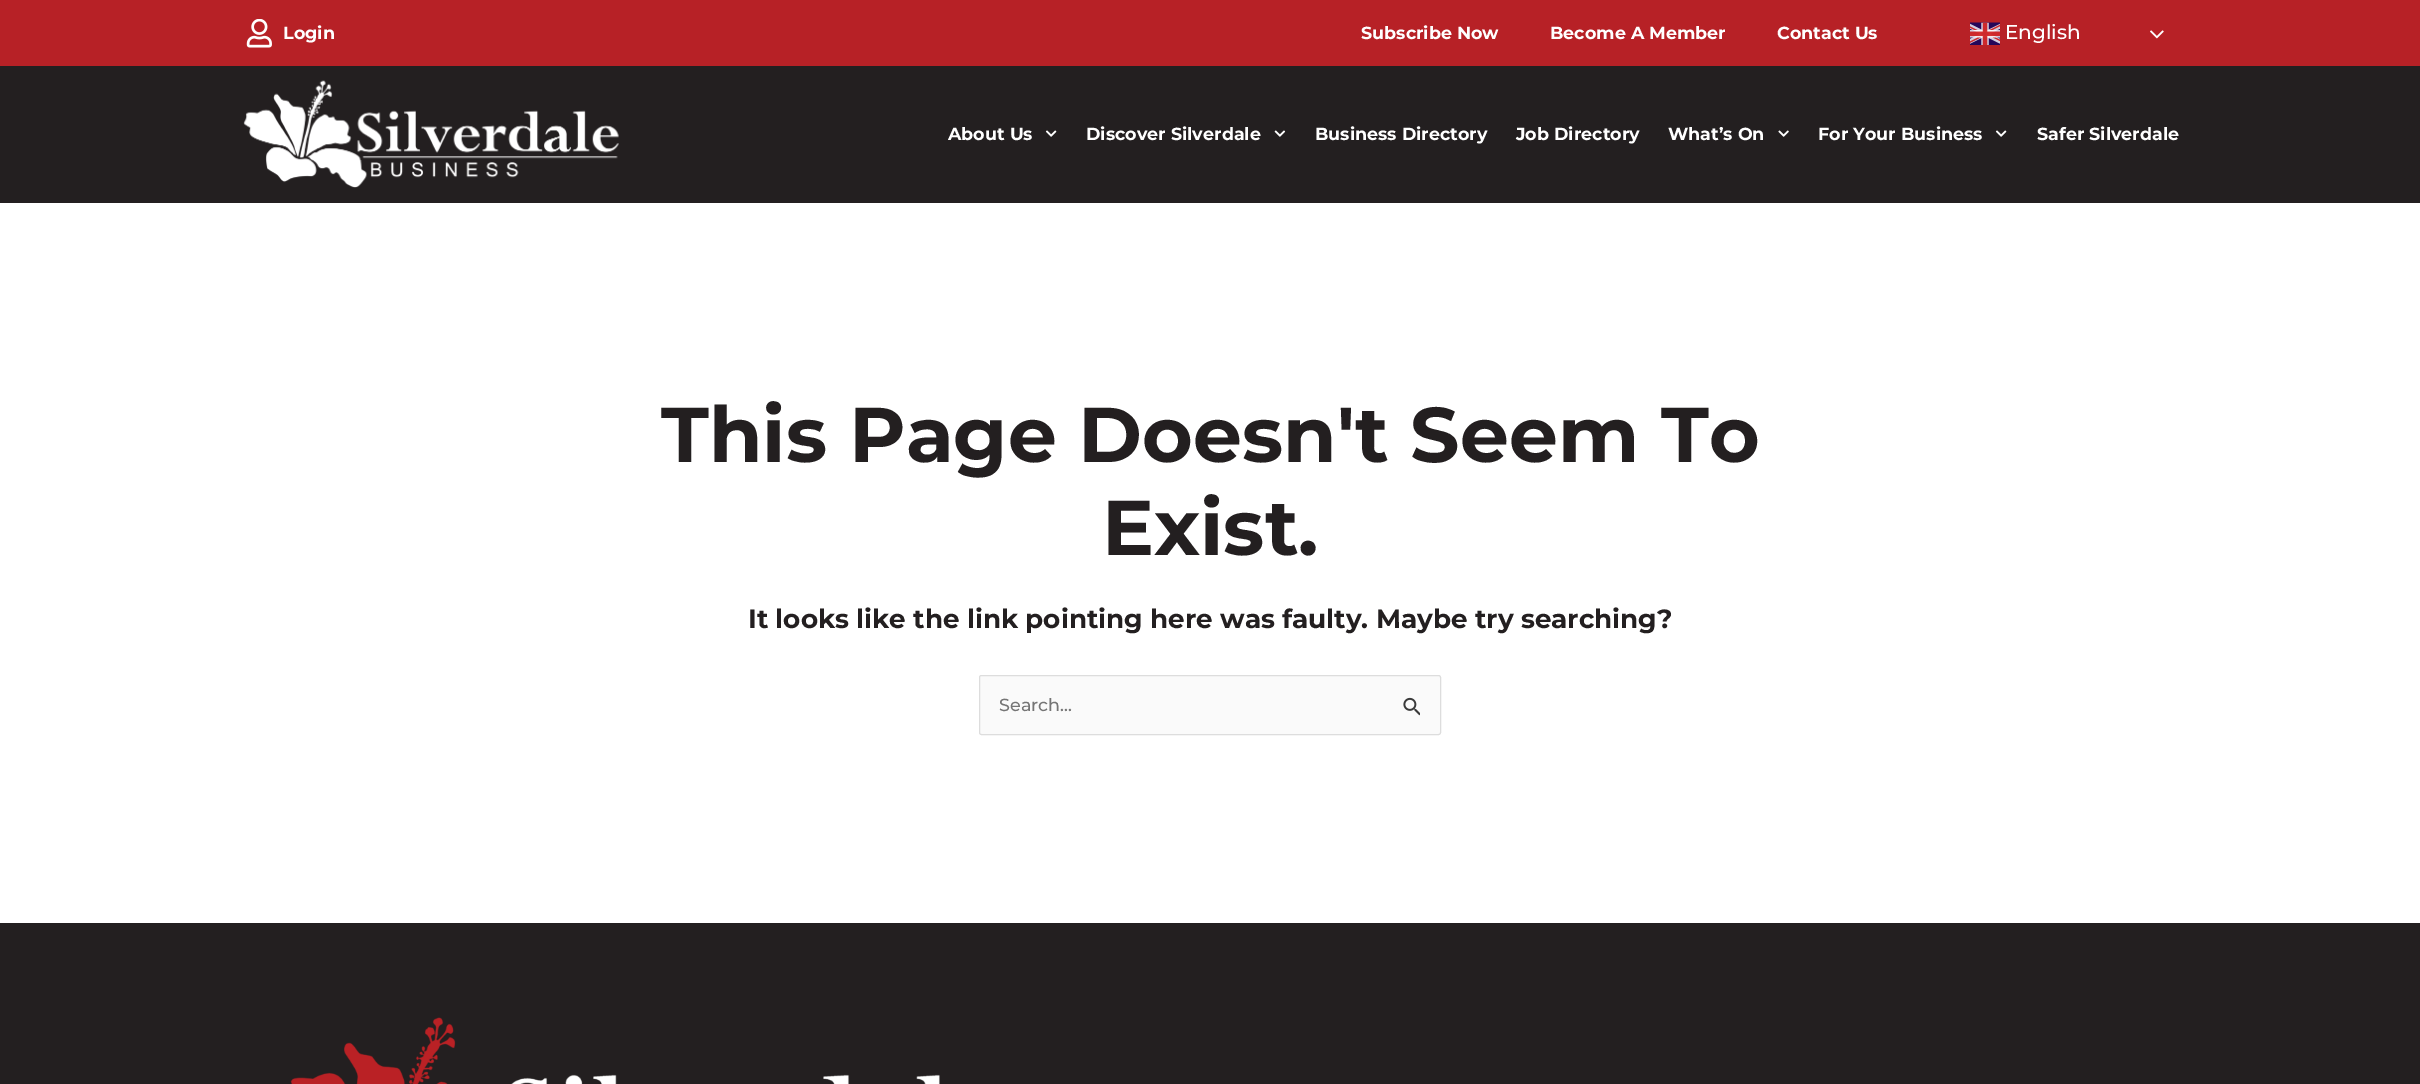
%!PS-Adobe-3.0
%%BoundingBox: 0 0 2420 1084
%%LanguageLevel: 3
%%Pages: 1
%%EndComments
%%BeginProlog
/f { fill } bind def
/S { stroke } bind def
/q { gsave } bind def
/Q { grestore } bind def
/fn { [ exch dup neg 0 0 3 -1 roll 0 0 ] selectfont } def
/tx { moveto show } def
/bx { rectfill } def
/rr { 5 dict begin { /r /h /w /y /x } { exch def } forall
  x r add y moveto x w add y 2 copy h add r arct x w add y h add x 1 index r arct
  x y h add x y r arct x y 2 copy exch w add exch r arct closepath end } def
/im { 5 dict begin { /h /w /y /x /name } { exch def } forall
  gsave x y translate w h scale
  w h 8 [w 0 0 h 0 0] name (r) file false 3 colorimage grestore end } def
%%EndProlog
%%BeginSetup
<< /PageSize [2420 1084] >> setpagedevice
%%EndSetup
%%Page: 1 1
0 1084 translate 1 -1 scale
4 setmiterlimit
1 setgray
0 0 2420 1084 bx
0.718 0.129 0.149 setrgbcolor
0 0 2420 66 bx
(image0.raw) 246 19 26 29 im
/Montserrat-Bold 17.5 fn
1 setgray
(Login) 283 39 tx
(Subscribe Now) 1361 39 tx
(Become A Member) 1550 39 tx
(Contact Us) 1777 39 tx
(image1.raw) 1970 22 30 23 im
/Montserrat-Medium 20 fn
(English) 2005 39 tx
(image2.raw) 2150 30 14 9 im
0.137 0.122 0.125 setrgbcolor
0 66 2420 137 bx
(image3.raw) 243 80 376 108 im
/Montserrat-Bold 17.5 fn
1 setgray
(About Us) 948 140 tx
(image4.raw) 1045 130 12 7 im
(Discover Silverdale) 1086 140 tx
(image5.raw) 1274 130 12 7 im
(Business Directory) 1315 140 tx
(Job Directory) 1516 140 tx
(What’s On) 1668 140 tx
(image6.raw) 1778 130 11 7 im
(For Your Business) 1818 140 tx
(image4.raw) 1995 130 12 7 im
(Safer Silverdale) 2037 140 tx
/Montserrat-Bold 77.5 fn
0.137 0.122 0.125 setrgbcolor
(This Page Doesn't Seem To) 661 462 tx
(Exist.) 1102 555 tx
/Montserrat-Bold 26.25 fn
(It looks like the link pointing here was faulty. Maybe try searching?) 748 628 tx
0.98 setgray
979.5 675.5 461 59 2 rr q f Q
0.867 setgray
S
/Montserrat-Medium 17.5 fn
0.459 setgray
(Search...) 999 711 tx
(image7.raw) 1403 697 17 19 im
0.137 0.122 0.125 setrgbcolor
0 923 2420 161 bx
(image8.raw) 290 1017 650 67 im
showpage
%%EOF
